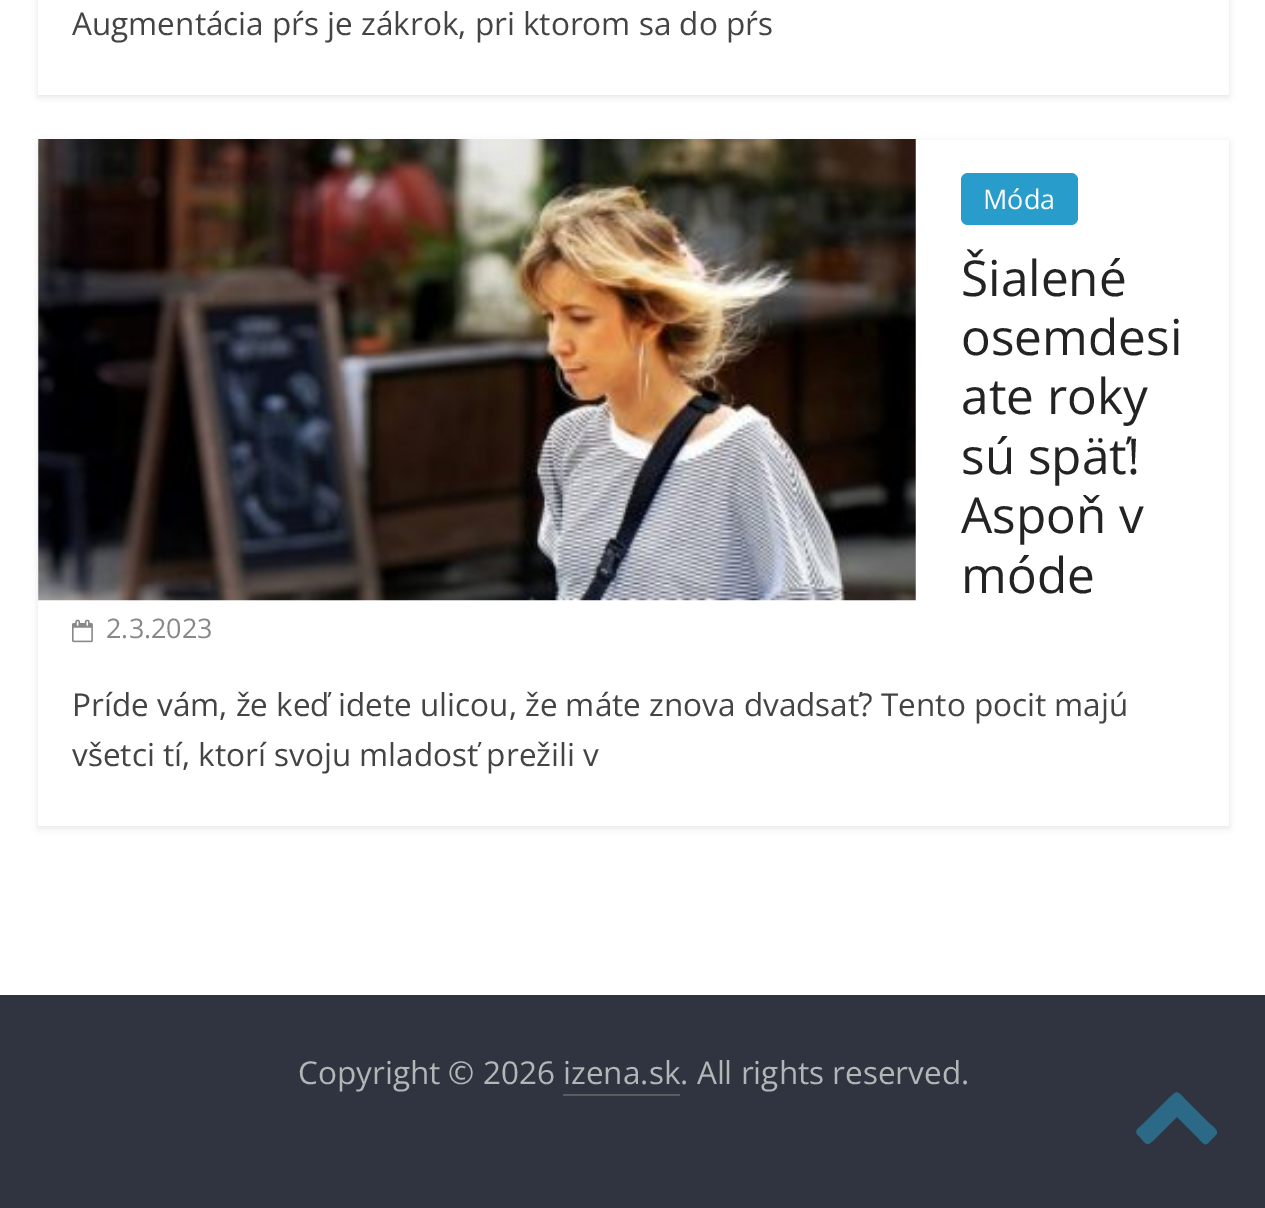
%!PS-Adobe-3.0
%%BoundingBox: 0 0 1265 1208
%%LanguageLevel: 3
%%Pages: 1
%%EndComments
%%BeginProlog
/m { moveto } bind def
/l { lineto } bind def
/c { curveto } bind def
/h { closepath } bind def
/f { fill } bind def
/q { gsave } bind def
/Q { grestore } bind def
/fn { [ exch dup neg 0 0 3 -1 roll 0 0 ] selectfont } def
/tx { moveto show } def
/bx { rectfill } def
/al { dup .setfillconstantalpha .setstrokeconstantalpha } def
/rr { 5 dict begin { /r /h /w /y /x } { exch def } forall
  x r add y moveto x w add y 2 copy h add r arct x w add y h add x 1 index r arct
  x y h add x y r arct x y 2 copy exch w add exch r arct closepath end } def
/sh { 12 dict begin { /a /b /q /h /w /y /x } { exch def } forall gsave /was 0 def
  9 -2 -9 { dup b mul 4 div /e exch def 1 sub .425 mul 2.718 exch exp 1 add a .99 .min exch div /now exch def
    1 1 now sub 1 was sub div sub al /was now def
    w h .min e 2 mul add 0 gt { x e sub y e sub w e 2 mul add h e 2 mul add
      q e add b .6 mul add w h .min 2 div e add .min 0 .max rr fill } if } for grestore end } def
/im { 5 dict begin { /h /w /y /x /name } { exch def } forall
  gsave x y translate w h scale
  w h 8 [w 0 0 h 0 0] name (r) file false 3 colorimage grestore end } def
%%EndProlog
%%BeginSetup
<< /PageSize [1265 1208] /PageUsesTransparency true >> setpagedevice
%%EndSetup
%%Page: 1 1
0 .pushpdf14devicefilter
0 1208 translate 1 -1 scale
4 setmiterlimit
1 setgray
0 0 1265 1208 bx
q
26 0 m 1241 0 l 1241 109 l 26 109 l h 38 -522 m 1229 -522 l 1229 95 l 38 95 l h eoclip newpath
0 setgray
38 -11 1191 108 0 3.5 0.1 sh
Q
/OpenSans-Regular 31.5 fn
0.267 setgray
(Augmentácia pŕs je zákrok, pri ktorom sa do pŕs) 72 35 tx
q
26 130 m 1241 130 l 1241 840 l 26 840 l h 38 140 m 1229 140 l 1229 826 l 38 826 l h eoclip newpath
0 setgray
38 142 1191 686 0 3.5 0.1 sh
Q
(image0.raw) 38 139 878 462 im
0.157 0.616 0.8 setrgbcolor
961 173 117 52 7 rr f
/OpenSans-Regular 27 fn
1 setgray
(Móda) 983 209 tx
/OpenSans-Regular 49.5 fn
0.137 setgray
(Šialené) 961 296 tx
(osemdesi) 961 355 tx
(ate roky) 961 414 tx
(sú späť!) 961 474 tx
(Aspoň v) 961 533 tx
(móde) 961 593 tx
(image1.raw) 72 619 21 24 im
/OpenSans-Regular 27 fn
0.533 setgray
(2.3.2023) 106 638 tx
/OpenSans-Regular 31.5 fn
0.267 setgray
(Príde vám, že keď idete ulicou, že máte znova dvadsať? Tento pocit majú) 72 716 tx
(všetci tí, ktorí svoju mladosť prežili v) 72 766 tx
0.188 0.204 0.251 setrgbcolor
0 995 1265 213 bx
0.694 0.714 0.714 setrgbcolor
(Copyright © 2026 izena.sk. All rights reserved.) 298 1084 tx
0.353 0.365 0.384 setrgbcolor
563 1094 117 2 bx
0.173 0.412 0.525 setrgbcolor
1216 1135 m 1209 1142 l 1205 1147 1203 1143 1199 1139 c 1177 1117 l 1155 1139 l 1146 1147 1147 1145 1139 1136 c 1133 1131 1138 1129 1143 1124 c 1168 1099 l 1178 1090 1176 1090 1185 1099 c 1210 1124 l 1211 1125 1220 1131 1216 1135 c h f
.poppdf14devicefilter showpage
%%EOF
